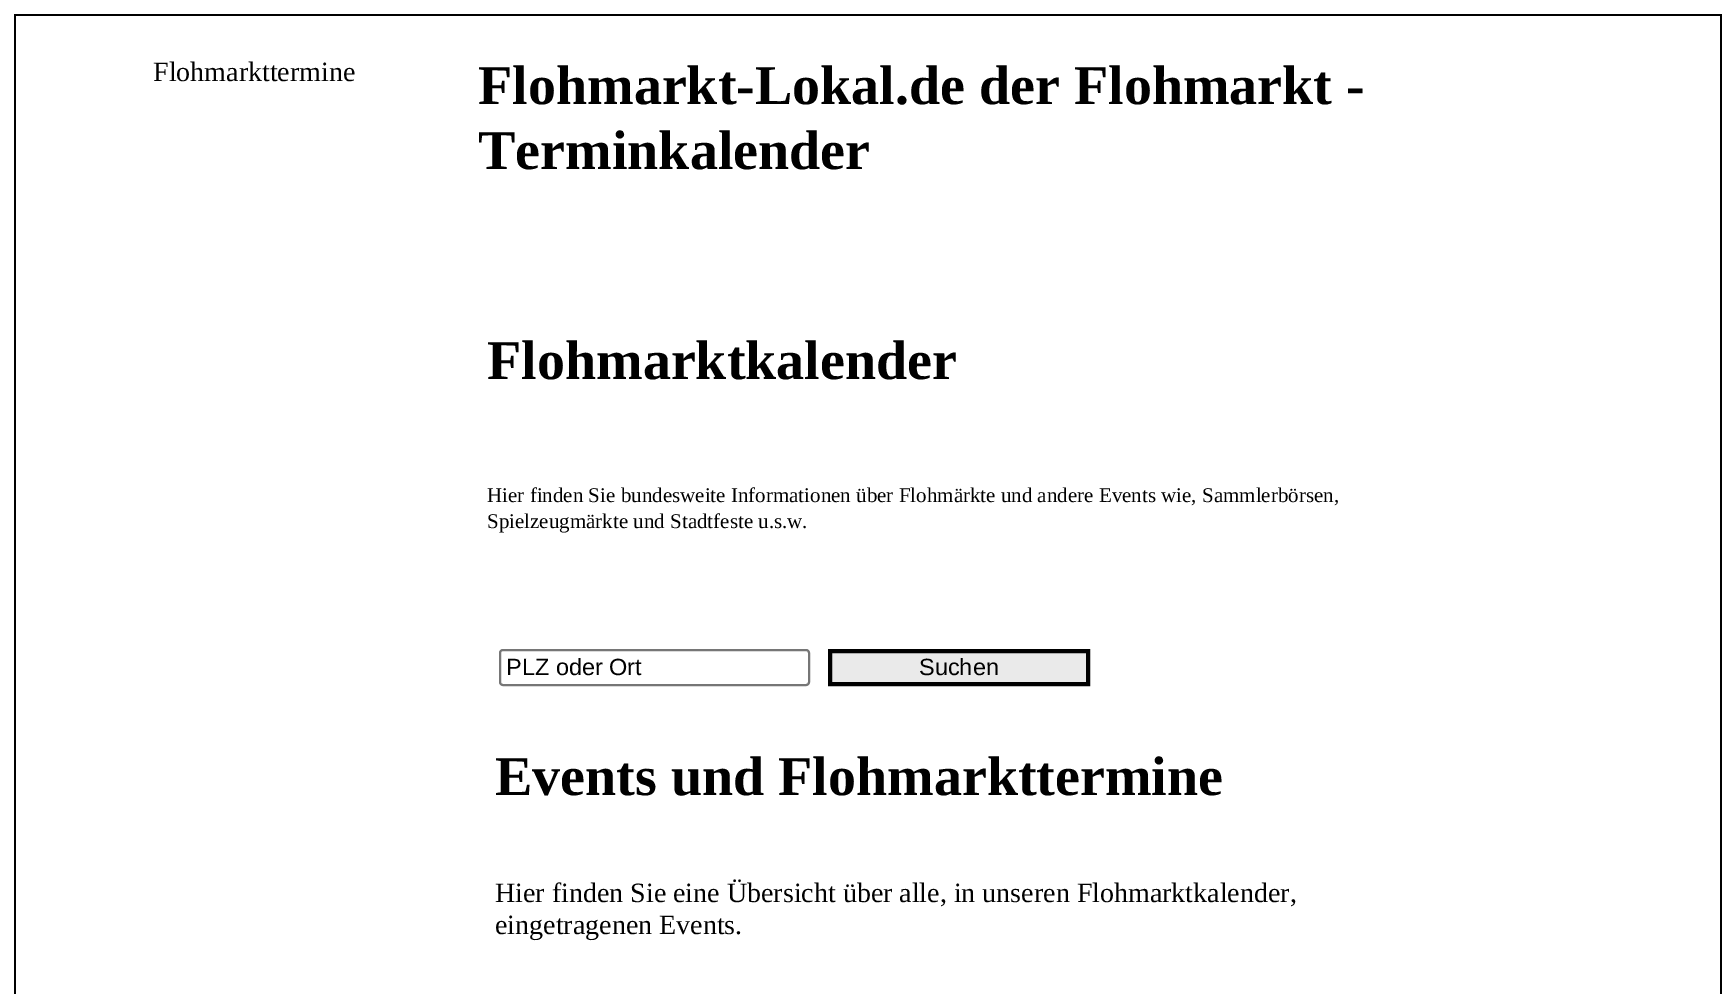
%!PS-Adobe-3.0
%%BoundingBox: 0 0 1736 994
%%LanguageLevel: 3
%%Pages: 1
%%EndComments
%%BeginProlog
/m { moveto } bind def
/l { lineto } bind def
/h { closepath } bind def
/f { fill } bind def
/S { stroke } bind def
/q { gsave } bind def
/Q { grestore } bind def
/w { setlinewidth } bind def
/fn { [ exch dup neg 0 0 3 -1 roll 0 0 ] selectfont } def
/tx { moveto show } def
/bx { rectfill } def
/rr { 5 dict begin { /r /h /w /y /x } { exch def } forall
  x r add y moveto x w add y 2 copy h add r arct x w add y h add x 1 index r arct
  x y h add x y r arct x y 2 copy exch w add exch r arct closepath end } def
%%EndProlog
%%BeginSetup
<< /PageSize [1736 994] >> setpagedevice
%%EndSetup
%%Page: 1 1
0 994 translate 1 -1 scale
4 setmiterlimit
1 setgray
0 0 1736 994 bx
0 setgray
14 14 1708 2 bx
1720 14 2 980 bx
14 14 2 980 bx
/LiberationSerif-Regular 28 fn
(Flohmarkttermine) 153 81 tx
/LiberationSerif-Bold 56 fn
(Flohmarkt-Lokal.de der Flohmarkt -) 478 104 tx
(Terminkalender) 478 169 tx
(Flohmarktkalender) 487 379 tx
/LiberationSerif-Regular 21 fn
(Hier finden Sie bundesweite Informationen über Flohmärkte und andere Events wie, Sammlerbörsen,) 487 502 tx
(Spielzeugmärkte und Stadtfeste u.s.w.) 487 528 tx
0.463 setgray
2 w
500 650 309 35 3 rr S
/LiberationSans-Regular 23.5 fn
0 setgray
(PLZ oder Ort) 506 675 tx
0.918 setgray
830 651 m 1088 651 l 1088 684 l 830 684 l h q f Q
0 setgray
4 w
S
(Suchen) 919 675 tx
/LiberationSerif-Bold 56 fn
(Events und Flohmarkttermine) 495 795 tx
/LiberationSerif-Regular 28 fn
(Hier finden Sie eine Übersicht über alle, in unseren Flohmarktkalender,) 495 902 tx
(eingetragenen Events.) 495 934 tx
showpage
%%EOF
